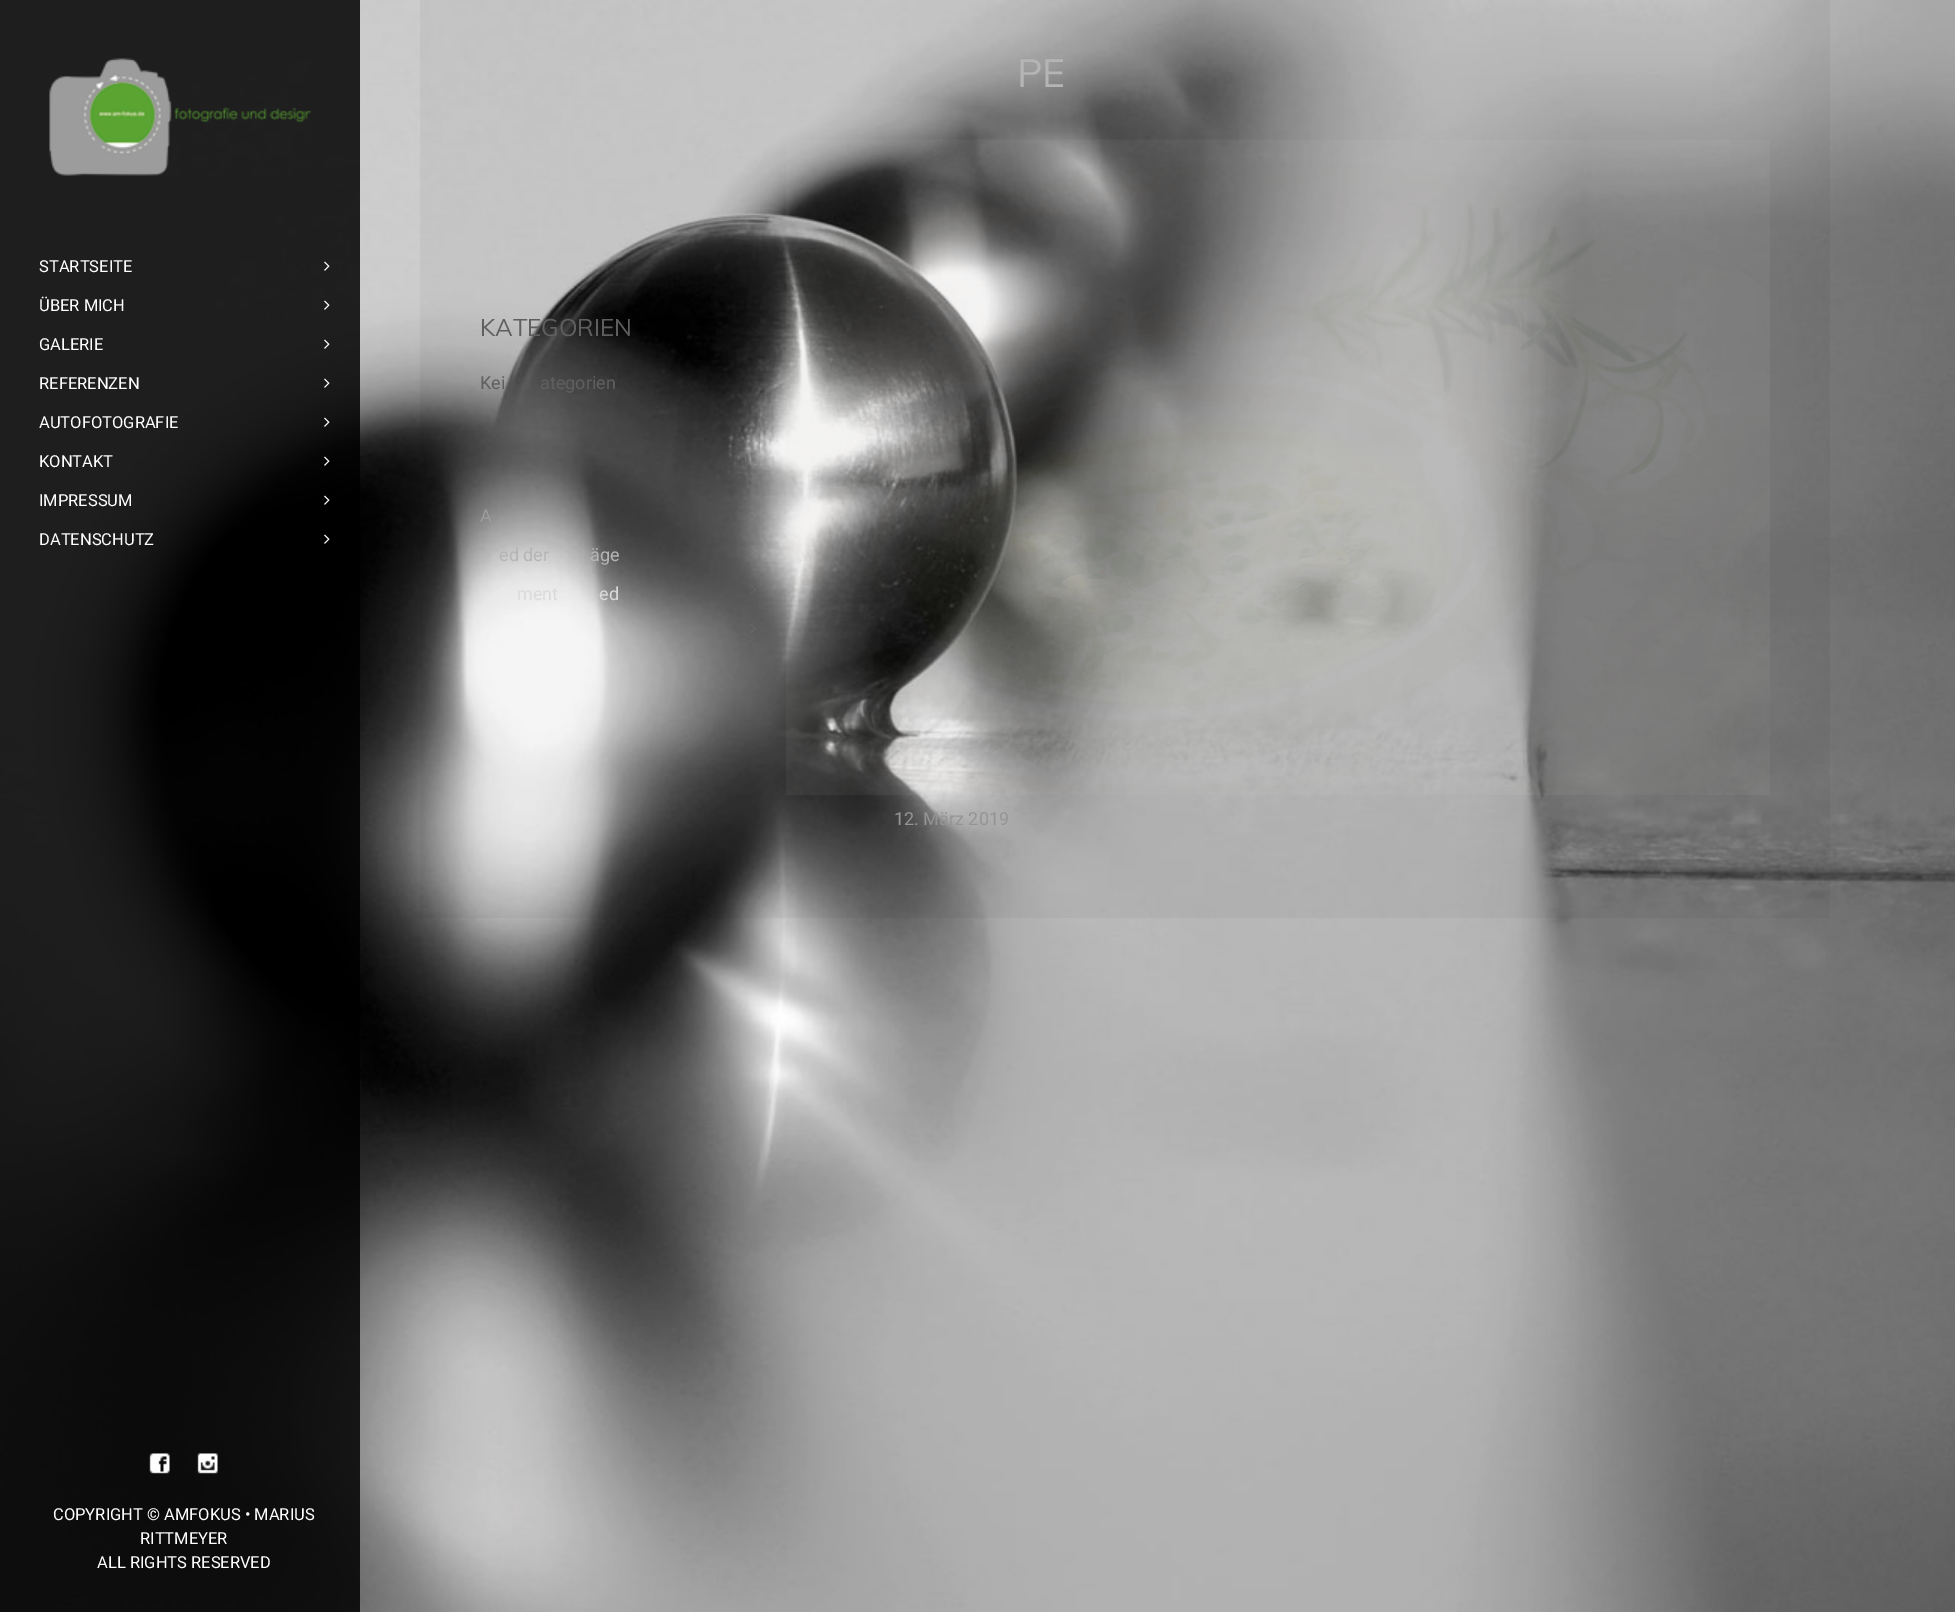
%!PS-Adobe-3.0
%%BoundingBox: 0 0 1955 1612
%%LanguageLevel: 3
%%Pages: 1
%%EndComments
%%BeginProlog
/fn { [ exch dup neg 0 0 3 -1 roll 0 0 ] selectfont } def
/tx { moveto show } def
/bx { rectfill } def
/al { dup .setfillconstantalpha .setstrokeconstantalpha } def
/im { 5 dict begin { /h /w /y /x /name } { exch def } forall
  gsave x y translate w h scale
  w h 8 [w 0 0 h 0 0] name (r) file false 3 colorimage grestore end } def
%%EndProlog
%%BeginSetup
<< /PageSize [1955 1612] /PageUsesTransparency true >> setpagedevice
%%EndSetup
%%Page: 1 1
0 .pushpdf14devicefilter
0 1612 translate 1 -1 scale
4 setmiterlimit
1 setgray
0 0 1955 1612 bx
(image0.raw) 0 0 1955 1612 im
0.85 al
0 setgray
0 0 360 1612 bx
1 al
(image1.raw) 49 58 262 118 im
/Roboto-Regular 16.5 fn
1 setgray
(STARTSEITE) 39 272 tx
(image2.raw) 324 261 6 10 im
(ÜBER MICH) 39 311 tx
(image3.raw) 324 300 6 10 im
(GALERIE) 39 350 tx
(image4.raw) 324 339 6 10 im
(REFERENZEN) 39 389 tx
(image5.raw) 324 378 6 10 im
(AUTOFOTOGRAFIE) 39 428 tx
(image6.raw) 324 417 6 10 im
(KONTAKT) 39 467 tx
(image7.raw) 324 456 6 10 im
(IMPRESSUM) 39 506 tx
(image8.raw) 324 495 6 10 im
(DATENSCHUTZ) 39 545 tx
(image9.raw) 324 534 6 10 im
(image10.raw) 149 1453 21 21 im
(image11.raw) 197 1453 21 21 im
(COPYRIGHT © AMFOKUS • MARIUS) 53 1520 tx
(RITTMEYER) 140 1544 tx
(ALL RIGHTS RESERVED) 97 1568 tx
0.04 al
0 setgray
420 0 1410 918 bx
/Muli-Regular 24 fn
1 al
0.373 setgray
(KATEGORIEN) 480 336 tx
/Roboto-Regular 18 fn
(Kei) 480 389 tx
(ategorien) 540 389 tx
0.612 setgray
(A) 480 522 tx
(image12.raw) 750 512 6 9 im
0.71 setgray
(ed der) 499 561 tx
(äge) 590 561 tx
(image13.raw) 750 546 6 9 im
0.855 setgray
(ment) 517 600 tx
(ed) 599 600 tx
(image14.raw) 750 585 6 9 im
(image15.raw) 750 624 6 9 im
/Muli-Regular 39 fn
0.71 setgray
(PE) 1017 87 tx
(image16.raw) 786 139 984 656 im
/Roboto-Regular 18 fn
0.58 setgray
(12. März 2019) 894 825 tx
.poppdf14devicefilter showpage
%%EOF
